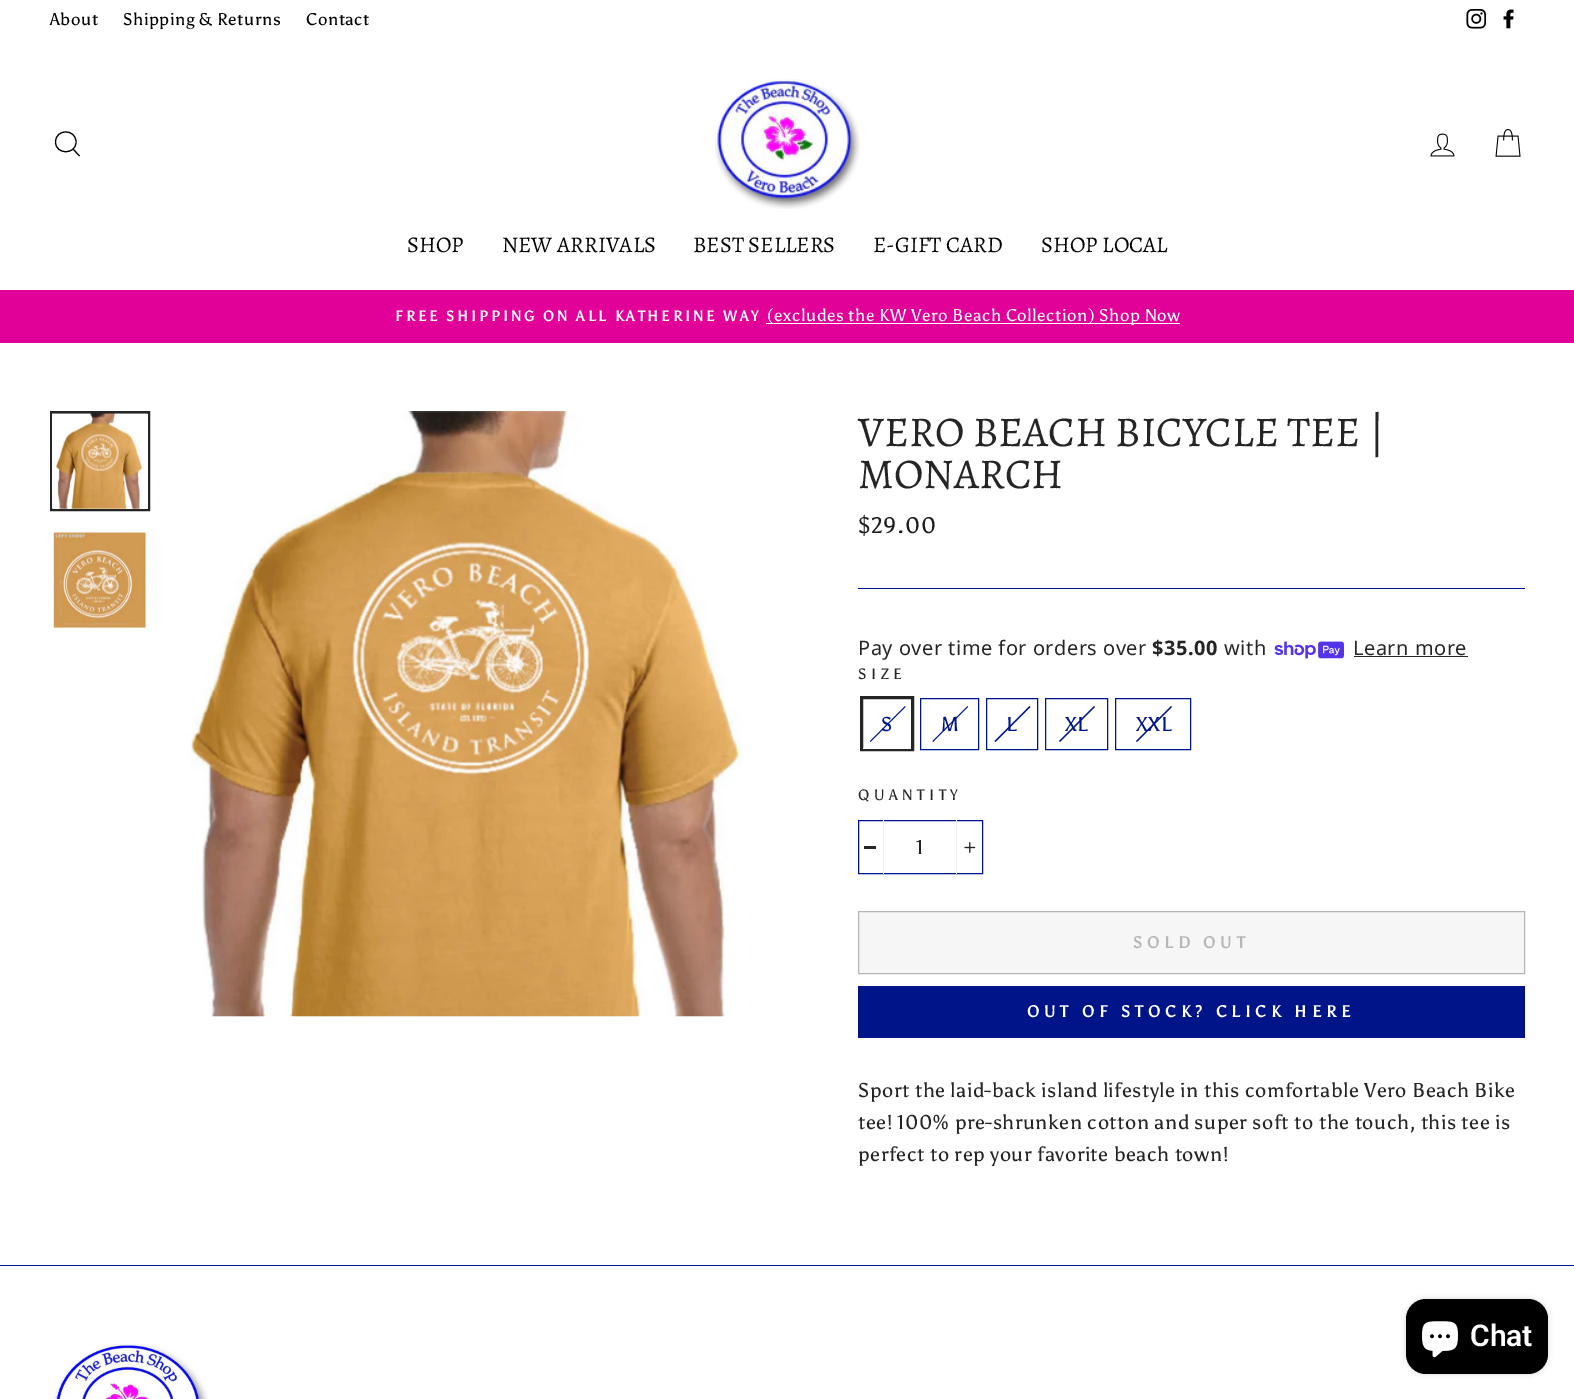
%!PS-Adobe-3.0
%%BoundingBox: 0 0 1574 1399
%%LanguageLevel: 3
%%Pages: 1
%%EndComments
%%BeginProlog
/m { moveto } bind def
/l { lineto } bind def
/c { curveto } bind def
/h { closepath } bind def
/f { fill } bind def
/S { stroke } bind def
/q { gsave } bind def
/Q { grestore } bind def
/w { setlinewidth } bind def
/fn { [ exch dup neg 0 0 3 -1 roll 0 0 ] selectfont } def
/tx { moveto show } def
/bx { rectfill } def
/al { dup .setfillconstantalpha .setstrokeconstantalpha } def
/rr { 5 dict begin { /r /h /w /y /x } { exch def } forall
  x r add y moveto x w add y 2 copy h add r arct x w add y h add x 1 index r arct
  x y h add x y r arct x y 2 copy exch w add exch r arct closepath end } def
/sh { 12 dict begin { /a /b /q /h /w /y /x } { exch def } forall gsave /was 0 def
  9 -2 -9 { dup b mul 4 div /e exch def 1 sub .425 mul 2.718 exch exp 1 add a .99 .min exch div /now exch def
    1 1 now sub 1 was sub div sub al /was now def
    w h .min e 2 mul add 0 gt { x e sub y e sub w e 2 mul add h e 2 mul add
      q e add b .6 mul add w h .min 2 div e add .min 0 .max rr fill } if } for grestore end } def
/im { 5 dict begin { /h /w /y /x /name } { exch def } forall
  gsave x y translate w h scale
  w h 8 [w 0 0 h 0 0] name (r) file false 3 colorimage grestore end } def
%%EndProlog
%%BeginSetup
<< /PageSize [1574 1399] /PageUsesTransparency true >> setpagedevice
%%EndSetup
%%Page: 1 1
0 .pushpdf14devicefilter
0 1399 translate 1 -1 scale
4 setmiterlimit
1 setgray
0 0 1574 1399 bx
/Asul-Regular 17 fn
0 setgray
50 25 m 0.5 0 (About) ashow
123 25 m 0.5 0 (Shipping & Returns) ashow
306 25 m 0.5 0 (Contact) ashow
(image0.raw) 1466 9 20 20 im
(image1.raw) 1503 9 11 20 im
1.1 w
76 142 m 76 155 55.5 155 55.5 142 c 55.5 128.5 76 128.5 76 142 c h 79.5 156 m 73 149 l S
(image2.raw) 715 79 145 130 im
(image3.raw) 1430 133 25 24 im
(image4.raw) 1495 129 26 28 im
/Alegreya-Regular 22.5 fn
(SHOP) 407 252 tx
(NEW ARRIVALS) 502 252 tx
(BEST SELLERS) 693 252 tx
(E-GIFT CARD) 873 252 tx
(SHOP LOCAL) 1041 252 tx
0.882 0 0.596 setrgbcolor
0 290 1574 53 bx
/Asul-Bold 14.45 fn
1 setgray
395 321 m 2.9 0 (FREE SHIPPING ON ALL KATHERINE WAY) ashow
766 323 414 1 bx
/Asul-Regular 17 fn
767 321 m 0.5 0 (\(excludes the KW Vero Beach Collection\) Shop Now) ashow
0.149 0.145 0.145 setrgbcolor
3 w
51.5 412.5 97 97 rectstroke
1 setgray
53 414 95 95 bx
(image5.raw) 52 413 96 96 im
(image6.raw) 53 532 94 96 im
(image7.raw) 187 411 556 606 im
/Alegreya-Regular 42.5 fn
0.149 0.145 0.145 setrgbcolor
(VERO BEACH BICYCLE TEE |) 858 446 tx
(MONARCH) 858 488 tx
/Asul-Regular 22.5 fn
0.11 0.114 0.114 setrgbcolor
858 533 m 0.5 0 ($29.00) ashow
0 0.078 0.537 setrgbcolor
858 588 667 1 bx
/NotoSans-Regular 20 fn
0.149 0.145 0.145 setrgbcolor
858 655 m 0.5 0 (Pay over time for orders over) ashow
/NotoSans-Bold 20 fn
1152 655 m 0.5 0 ($35.00) ashow
/NotoSans-Regular 20 fn
1224 655 m 0.5 0 (with) ashow
(image8.raw) 1274 641 70 18 im
1353 655 m 0.5 0 (Learn more) ashow
1354 656 114 1 bx
/Asul-Regular 15 fn
858 679 m 4.5 0 (SIZE) ashow
861.5 697.5 51 52 rectstroke
1 setgray
863 748 48 1 bx
0 0.078 0.537 setrgbcolor
905 706 m 905.5 707 l 870.5 742 l 870 741 l h f
/Asul-Regular 20 fn
881 731 m 0.5 0 (S) ashow
1 w
920.5 698.5 58 51 rectstroke
967.5 706 m 968 707 l 933 742 l 932.5 741 l h f
941 731 m 0.5 0 (M) ashow
986.5 698.5 51 51 rectstroke
1029.5 706 m 1030.5 707 l 995.5 742 l 994.5 741 l h f
1006 731 m 0.5 0 (L) ashow
1045.5 698.5 62 51 rectstroke
1094 706 m 1095 707 l 1060 742 l 1059 741 l h f
1065 731 m 0.5 0 (XL) ashow
1115.5 698.5 75 51 rectstroke
1171 706 m 1172 707 l 1137 742 l 1136 741 l h f
1136 731 m 0.5 0 (XXL) ashow
/Asul-Regular 15 fn
0.149 0.145 0.145 setrgbcolor
858 800 m 4.5 0 (QUANTITY) ashow
0 0.078 0.537 setrgbcolor
858.5 820.5 124 53 rectstroke
0.949 setgray
883 820 1 54 bx
0.149 0.145 0.145 setrgbcolor
864 846 12 3 bx
/Asul-Regular 20 fn
916 854 m 0.5 0 (1) ashow
0.949 setgray
956 820 1 54 bx
(image9.raw) 964 842 12 11 im
0.965 setgray
858.5 911.5 m 1524.5 911.5 l 1524.5 973.5 l 858.5 973.5 l h q f Q
0.714 setgray
S
/Asul-Bold 16.25 fn
1133 948 m 4.9 0 (SOLD OUT) ashow
0 0.078 0.537 setrgbcolor
858 986 667 52 bx
1 setgray
1027 1017 m 4.9 0 (OUT OF STOCK? CLICK HERE) ashow
/Asul-Regular 20 fn
0.149 0.145 0.145 setrgbcolor
858 1097 m 0.5 0 (Sport the laid-back island lifestyle in this comfortable Vero Beach Bike) ashow
858 1129 m 0.5 0 (tee! 100% pre-shrunken cotton and super soft to the touch, this tee is) ashow
858 1161 m 0.5 0 (perfect to rep your favorite beach town!) ashow
0 0.078 0.537 setrgbcolor
0 1265 1574 1 bx
(image10.raw) 54 1344 154 55 im
0 setgray
1406 1299 142 75 20 3 0.15 sh
1406 1299 142 75 20 rr f
(image11.raw) 1422 1321 36 37 im
/Roboto-SemiBold 30 fn
1 setgray
(Chat) 1470 1346 tx
.poppdf14devicefilter showpage
%%EOF
